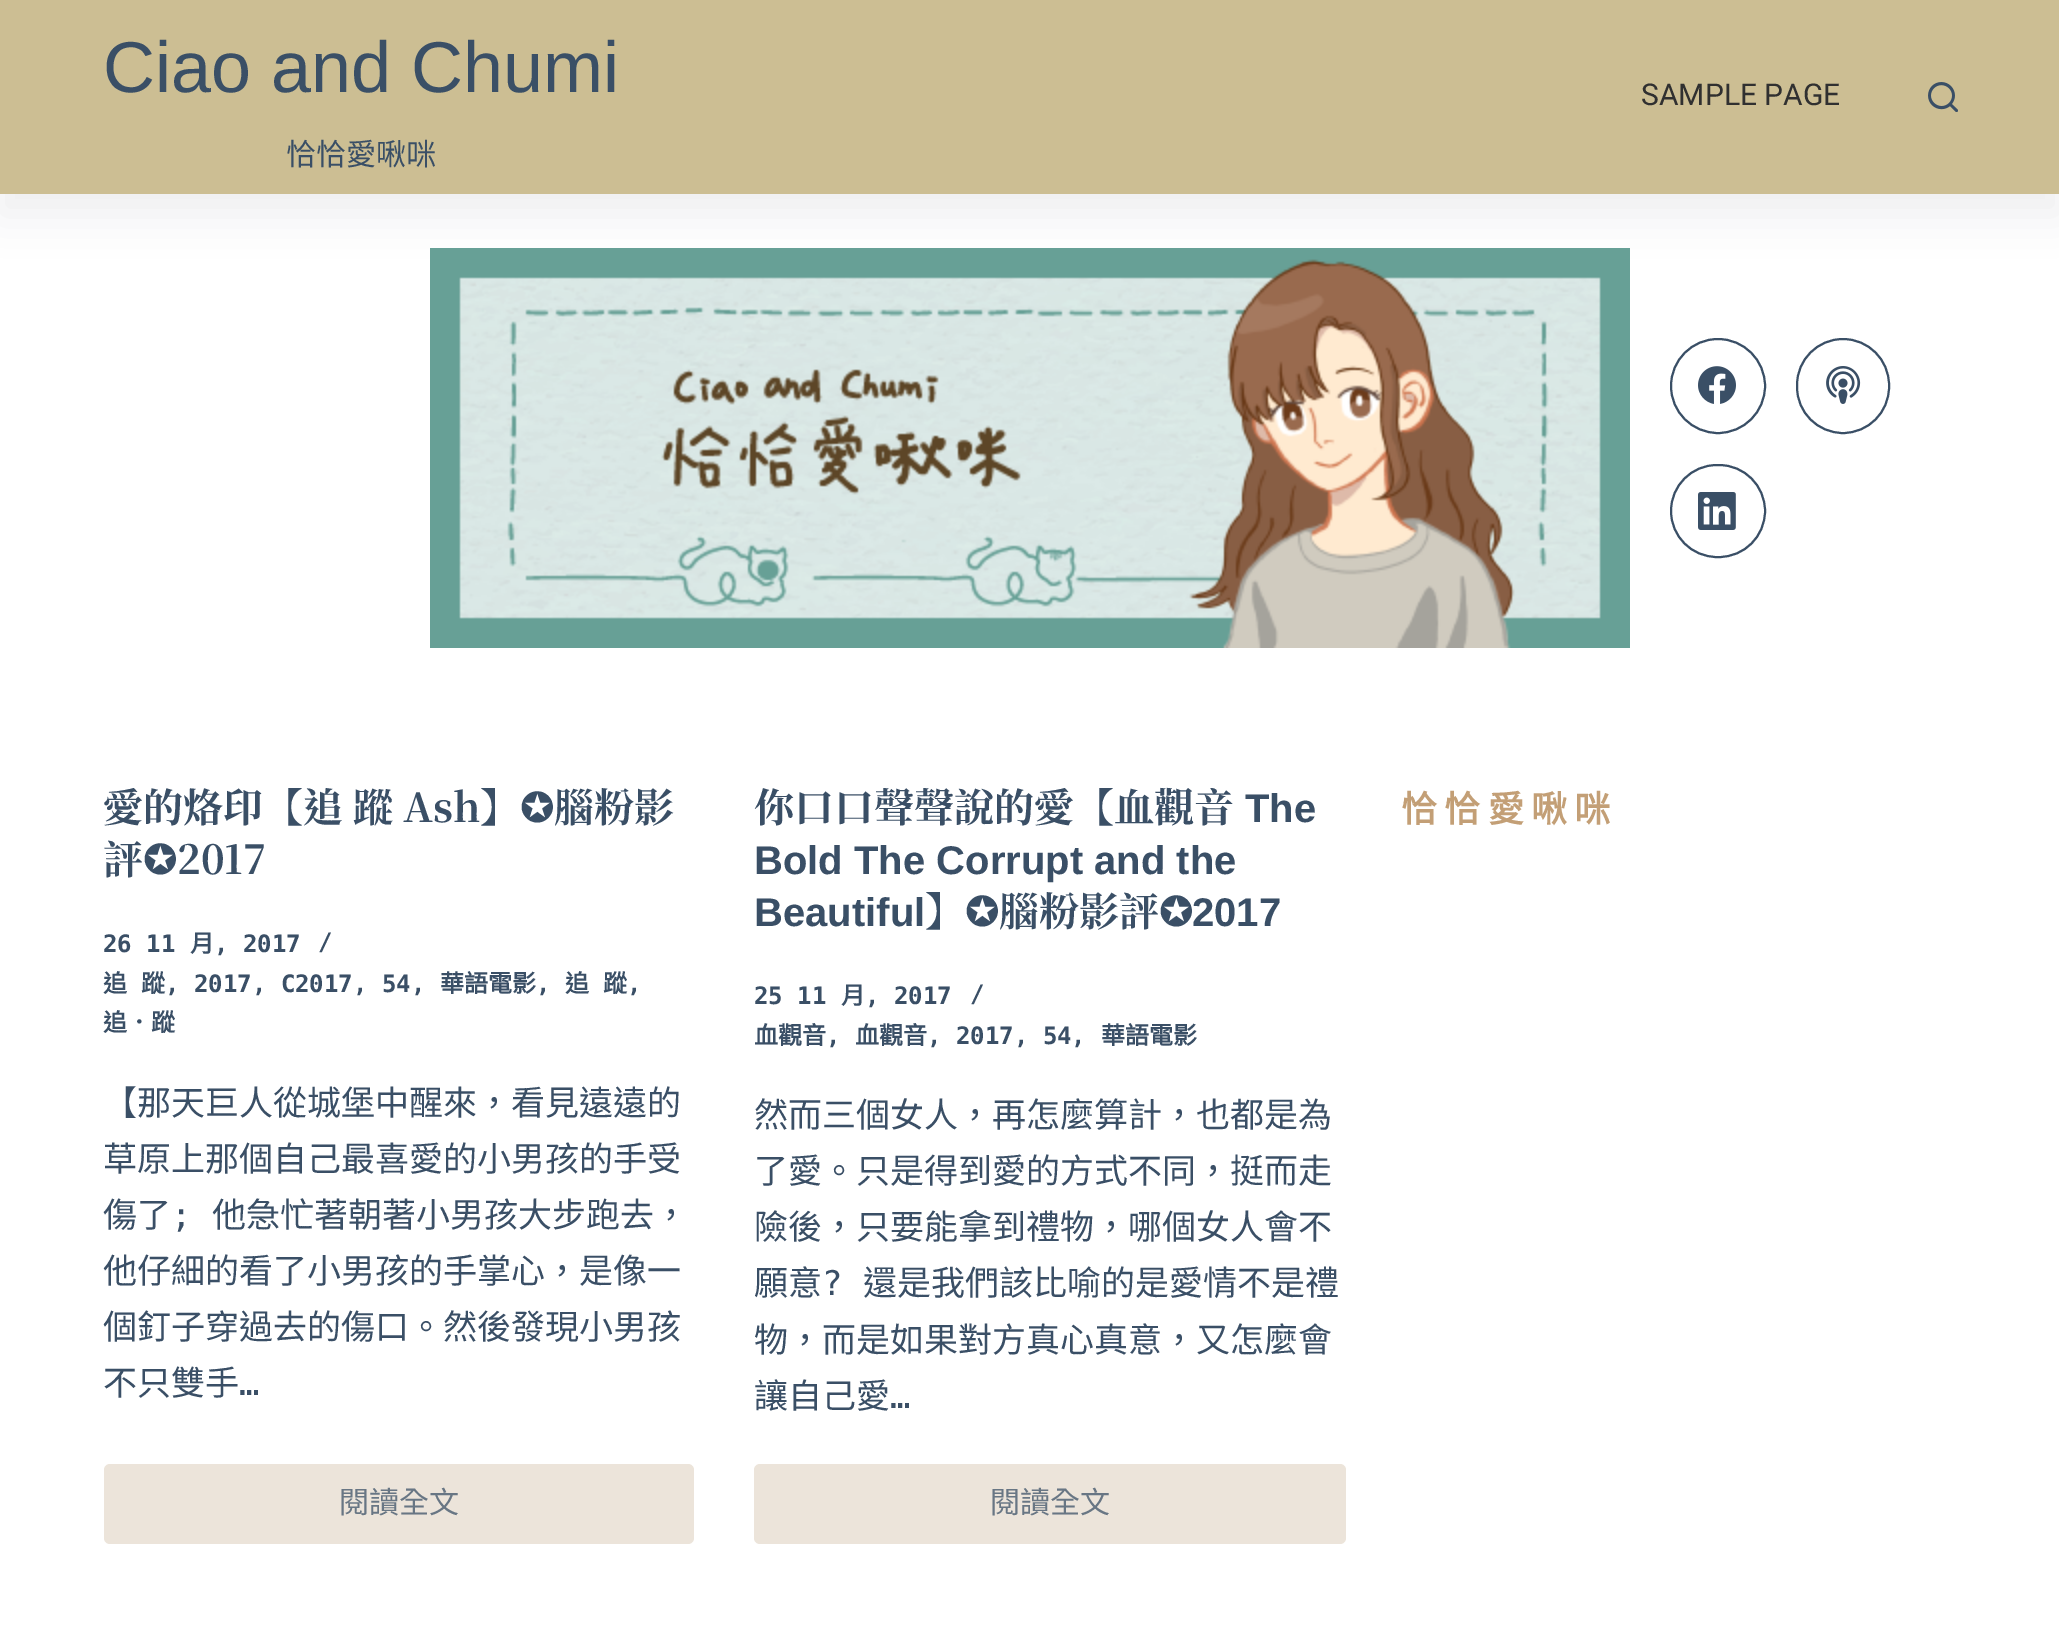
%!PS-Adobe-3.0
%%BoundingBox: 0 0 2059 1626
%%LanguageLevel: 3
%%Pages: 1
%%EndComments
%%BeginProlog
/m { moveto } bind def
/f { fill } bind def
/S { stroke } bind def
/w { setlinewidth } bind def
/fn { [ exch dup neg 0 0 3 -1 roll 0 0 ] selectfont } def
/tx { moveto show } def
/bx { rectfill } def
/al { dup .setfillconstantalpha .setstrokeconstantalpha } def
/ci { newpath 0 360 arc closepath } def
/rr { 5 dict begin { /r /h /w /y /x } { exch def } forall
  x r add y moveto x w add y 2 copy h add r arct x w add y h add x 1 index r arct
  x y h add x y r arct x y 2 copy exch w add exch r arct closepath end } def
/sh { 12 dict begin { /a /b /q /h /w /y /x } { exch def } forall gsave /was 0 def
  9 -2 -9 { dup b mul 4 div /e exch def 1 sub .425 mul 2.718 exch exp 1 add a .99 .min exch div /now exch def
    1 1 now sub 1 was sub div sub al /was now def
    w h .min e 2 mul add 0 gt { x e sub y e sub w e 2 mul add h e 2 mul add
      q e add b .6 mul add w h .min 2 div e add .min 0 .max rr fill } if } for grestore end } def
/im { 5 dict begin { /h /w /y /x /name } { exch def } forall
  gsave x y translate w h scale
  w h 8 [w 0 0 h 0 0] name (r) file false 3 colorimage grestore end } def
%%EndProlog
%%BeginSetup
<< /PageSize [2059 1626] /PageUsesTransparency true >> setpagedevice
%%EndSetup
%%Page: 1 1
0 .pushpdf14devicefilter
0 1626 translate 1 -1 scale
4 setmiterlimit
1 setgray
0 0 2059 1626 bx
(image1.raw) 430 248 1200 400 im
0.169 0.239 0.31 setrgbcolor
0 20 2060 194 0 20 0.08 sh
0.8 0.745 0.576 setrgbcolor
0 0 2059 194 bx
/LiberationSans-Regular 72 fn
0.227 0.31 0.4 setrgbcolor
(Ciao and Chumi) 103 92 tx
/NotoSansCJKTC-Regular 30 fn
(恰恰愛啾咪) 286 165 tx
/Roboto-Regular 30 fn
0.188 setgray
(SAMPLE PAGE) 1641 105 tx
(image0.raw) 1928 82 30 30 im
0.227 0.31 0.4 setrgbcolor
2 w
1718 386 47 ci S
(image2.raw) 1698 366 38 38 im
1797 339 92 94 46 rr S
(image3.raw) 1826 366 35 38 im
1671 465 94 92 46 rr S
(image4.raw) 1698 492 38 38 im
/NotoSerifTC-Bold 40 fn
(愛的烙印【追 蹤 Ash】) 103 822 tx
/DejaVuSans-Bold 40 fn
(✪) 520 822 tx
/NotoSerifTC-Bold 40 fn
(腦粉影) 554 822 tx
(評) 103 874 tx
/DejaVuSans-Bold 40 fn
(✪) 143 874 tx
/NotoSerifTC-Bold 40 fn
(2017) 177 874 tx
/DejaVuSansMono-Bold 24 fn
(26 11) 103 952 tx
/NotoSansCJKTC-Bold 24 fn
(月) 190 952 tx
/DejaVuSansMono-Bold 24 fn
(, 2017) 214 952 tx
(/) 318 950 tx
/NotoSansCJKTC-Bold 24 fn
103 992 m 9 0 32 (追 蹤) widthshow
/DejaVuSansMono-Bold 24 fn
(, 2017, C2017, 54,) 165 992 tx
/NotoSansCJKTC-Bold 24 fn
(華語電影) 440 992 tx
/DejaVuSansMono-Bold 24 fn
(,) 536 992 tx
/NotoSansCJKTC-Bold 24 fn
565 992 m 9 0 32 (追 蹤) widthshow
/DejaVuSansMono-Bold 24 fn
(,) 627 992 tx
/NotoSansCJKTC-Bold 24 fn
(追．蹤) 103 1031 tx
/NotoSansCJKTC-Regular 34 fn
(【那天巨人從城堡中醒來，看見遠遠的) 103 1115 tx
(草原上那個自己最喜愛的小男孩的手受) 103 1171 tx
(傷了) 103 1227 tx
/DejaVuSansMono-Regular 34 fn
(;) 171 1227 tx
/NotoSansCJKTC-Regular 34 fn
(他急忙著朝著小男孩大步跑去，) 212 1227 tx
(他仔細的看了小男孩的手掌心，是像一) 103 1283 tx
(個釘子穿過去的傷口。然後發現小男孩) 103 1339 tx
(不只雙手) 103 1395 tx
/DejaVuSansMono-Regular 34 fn
(…) 239 1395 tx
0.925 0.894 0.855 setrgbcolor
104 1464 590 80 6 rr f
/NotoSansCJKTC-Regular 30 fn
0.408 0.463 0.518 setrgbcolor
(閱讀全文) 339 1513 tx
/NotoSerifTC-Bold 40 fn
0.227 0.31 0.4 setrgbcolor
(你口口聲聲說的愛【血觀音) 754 822 tx
/LiberationSans-Bold 40 fn
(The) 1245 822 tx
(Bold The Corrupt and the) 754 874 tx
(Beautiful) 754 926 tx
/NotoSerifTC-Bold 40 fn
(】) 925 926 tx
/DejaVuSans-Bold 40 fn
(✪) 965 926 tx
/NotoSerifTC-Bold 40 fn
(腦粉影評) 999 926 tx
/DejaVuSans-Bold 40 fn
(✪) 1159 926 tx
/LiberationSans-Bold 40 fn
(2017) 1192 926 tx
/DejaVuSansMono-Bold 24 fn
(25 11) 754 1004 tx
/NotoSansCJKTC-Bold 24 fn
(月) 841 1004 tx
/DejaVuSansMono-Bold 24 fn
(, 2017) 865 1004 tx
(/) 970 1002 tx
/NotoSansCJKTC-Bold 24 fn
(血觀音) 754 1044 tx
/DejaVuSansMono-Bold 24 fn
(,) 826 1044 tx
/NotoSansCJKTC-Bold 24 fn
(血觀音) 855 1044 tx
/DejaVuSansMono-Bold 24 fn
(, 2017, 54,) 927 1044 tx
/NotoSansCJKTC-Bold 24 fn
(華語電影) 1101 1044 tx
/NotoSansCJKTC-Regular 34 fn
(然而三個女人，再怎麼算計，也都是為) 754 1127 tx
(了愛。只是得到愛的方式不同，挺而走) 754 1183 tx
(險後，只要能拿到禮物，哪個女人會不) 754 1239 tx
(願意) 754 1295 tx
/DejaVuSansMono-Regular 34 fn
(?) 822 1295 tx
/NotoSansCJKTC-Regular 34 fn
(還是我們該比喻的是愛情不是禮) 863 1295 tx
(物，而是如果對方真心真意，又怎麼會) 754 1352 tx
(讓自己愛) 754 1408 tx
/DejaVuSansMono-Regular 34 fn
(…) 890 1408 tx
0.925 0.894 0.855 setrgbcolor
754 1464 592 80 6 rr f
/NotoSansCJKTC-Regular 30 fn
0.408 0.463 0.518 setrgbcolor
(閱讀全文) 990 1513 tx
/NotoSansCJKTC-Bold 36 fn
0.765 0.624 0.463 setrgbcolor
1401 822 m 7.25 0 (恰恰愛啾咪) ashow
.poppdf14devicefilter showpage
%%EOF
